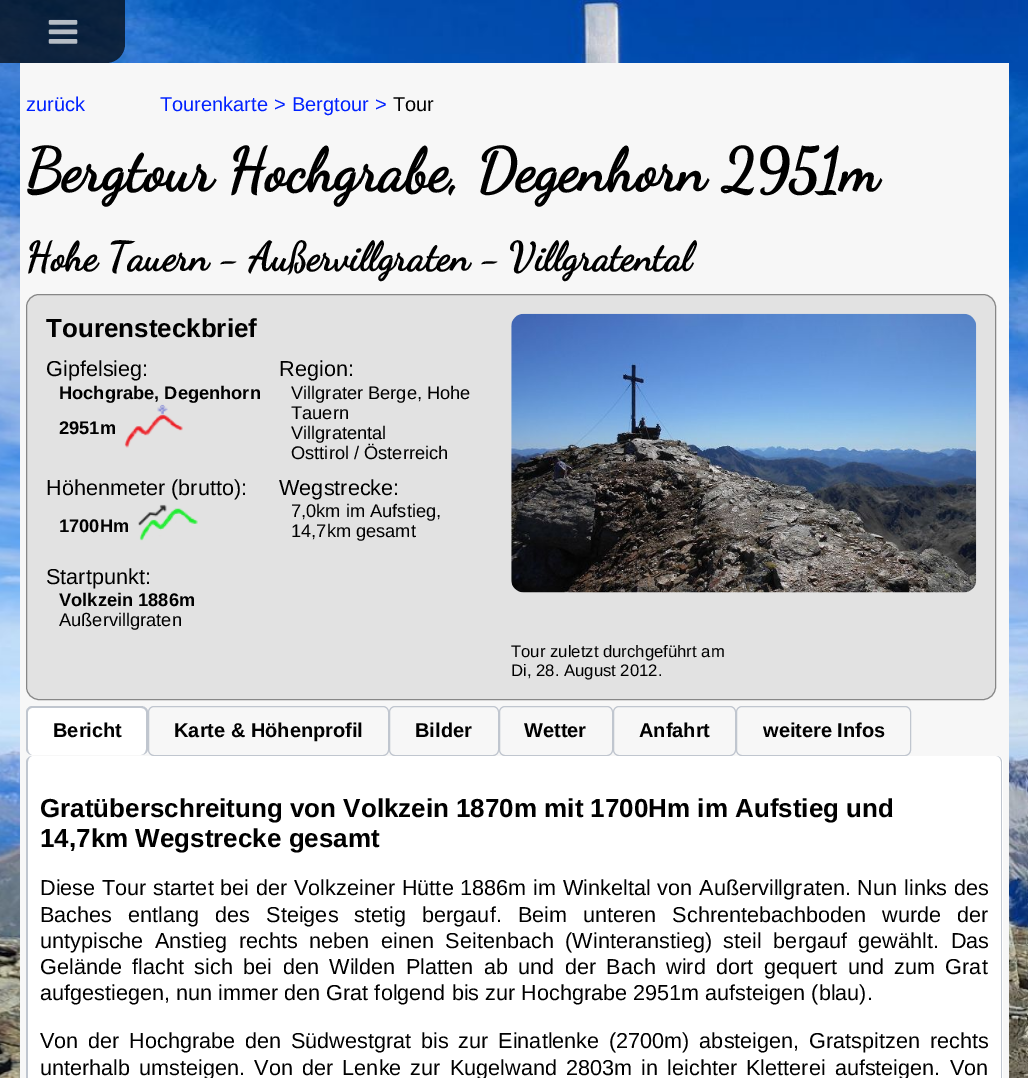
%!PS-Adobe-3.0
%%BoundingBox: 0 0 1028 1078
%%LanguageLevel: 3
%%Pages: 1
%%EndComments
%%BeginProlog
/m { moveto } bind def
/l { lineto } bind def
/c { curveto } bind def
/h { closepath } bind def
/f { fill } bind def
/S { stroke } bind def
/q { gsave } bind def
/Q { grestore } bind def
/fn { [ exch dup neg 0 0 3 -1 roll 0 0 ] selectfont } def
/tx { moveto show } def
/bx { rectfill } def
/al { dup .setfillconstantalpha .setstrokeconstantalpha } def
/rr { 5 dict begin { /r /h /w /y /x } { exch def } forall
  x r add y moveto x w add y 2 copy h add r arct x w add y h add x 1 index r arct
  x y h add x y r arct x y 2 copy exch w add exch r arct closepath end } def
/im { 5 dict begin { /h /w /y /x /name } { exch def } forall
  gsave x y translate w h scale
  w h 8 [w 0 0 h 0 0] name (r) file false 3 colorimage grestore end } def
%%EndProlog
%%BeginSetup
<< /PageSize [1028 1078] /PageUsesTransparency true >> setpagedevice
%%EndSetup
%%Page: 1 1
0 .pushpdf14devicefilter
0 1078 translate 1 -1 scale
4 setmiterlimit
1 setgray
0 0 1028 1078 bx
(image1.raw) 0 0 1028 1078 im
0.7 al
0 setgray
0 0 m 125 0 l 125 44 l 125 54.5 116.5 63 106 63 c 0 63 l h f
1 al
(image0.raw) 48 19 30 25 im
0.969 setgray
20 63 989 1015 bx
/LiberationSans-Regular 20 fn
0 0.129 1 setrgbcolor
(zurück) 26 111 tx
(Tourenkarte) 160 111 tx
(>) 274 111 tx
(Bergtour) 292 111 tx
(>) 375 111 tx
0 setgray
(Tour) 393 111 tx
/DancingScript-Bold 60 fn
(Bergtour Hochgrabe, Degenhorn 2951m) 26 190 tx
/DancingScript-Bold 40 fn
(Hohe Tauern - Außervillgraten - Villgratental) 26 270 tx
0.886 setgray
26.5 294.5 969 405 12.5 rr q f Q
0.529 setgray
S
/LiberationSans-Bold 26 fn
0 setgray
(Tourensteckbrief) 46 337 tx
(image2.raw) 511 313 466 280 im
/LiberationSans-Regular 21.65 fn
(Gipfelsieg:) 46 376 tx
/LiberationSans-Bold 18.25 fn
(Hochgrabe, Degenhorn) 59 399 tx
(2951m) 59 434 tx
(image3.raw) 124 404 59 44 im
/LiberationSans-Regular 21.65 fn
(Region:) 279 376 tx
/LiberationSans-Regular 18.25 fn
(Villgrater Berge, Hohe) 291 399 tx
(Tauern) 291 419 tx
(Villgratental) 291 439 tx
(Osttirol / Österreich) 291 459 tx
/LiberationSans-Regular 21.65 fn
(Höhenmeter \(brutto\):) 46 495 tx
/LiberationSans-Bold 18.25 fn
(1700Hm) 59 532 tx
(image4.raw) 138 504 60 37 im
/LiberationSans-Regular 21.65 fn
(Wegstrecke:) 279 495 tx
/LiberationSans-Regular 18.25 fn
(7,0km im Aufstieg,) 291 517 tx
(14,7km gesamt) 291 537 tx
/LiberationSans-Regular 21.65 fn
(Startpunkt:) 46 584 tx
/LiberationSans-Bold 18.25 fn
(Volkzein 1886m) 59 606 tx
/LiberationSans-Regular 18.25 fn
(Außervillgraten) 59 626 tx
/LiberationSans-Regular 16.7 fn
(Tour zuletzt durchgeführt am) 511 657 tx
(Di, 28. August 2012.) 511 676 tx
1 setgray
26 706 122 49 6 rr f
0.753 0.776 0.812 setrgbcolor
32 706 m 141 706 l 145 706 148 709 148 712 c 148 749 l 148 752 145 755 141 755 c 32 755 l 29 755 26 752 26 749 c 26 712 l 26 709 29 706 32 706 c h 32 708 m 141 708 l 144 708 146 710 146 712 c 146 749 l 146 752 144 755 141 755 c 32 755 l 30 755 28 752 28 749 c 28 712 l 28 710 30 708 32 708 c h eofill
/LiberationSans-Bold 20 fn
0 setgray
(Bericht) 53 737 tx
0.753 0.776 0.812 setrgbcolor
148.5 706.5 240 49 5.5 rr S
0 setgray
(Karte & Höhenprofil) 174 737 tx
0.753 0.776 0.812 setrgbcolor
389.5 706.5 109 49 5.5 rr S
0 setgray
(Bilder) 415 737 tx
0.753 0.776 0.812 setrgbcolor
499.5 706.5 113 49 5.5 rr S
0 setgray
(Wetter) 524 737 tx
0.753 0.776 0.812 setrgbcolor
613.5 706.5 122 49 5.5 rr S
0 setgray
(Anfahrt) 639 737 tx
0.753 0.776 0.812 setrgbcolor
736.5 706.5 174 49 5.5 rr S
0 setgray
(weitere Infos) 763 737 tx
1 setgray
26 756 977 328 6 rr f
0.753 0.776 0.812 setrgbcolor
32 756 m 996 756 l 1000 756 1002 759 1002 762 c 1002 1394 l 1002 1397 1000 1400 996 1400 c 32 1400 l 29 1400 26 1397 26 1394 c 26 762 l 26 759 29 756 32 756 c h 32 756 m 996 756 l 999 756 1001 759 1001 762 c 1001 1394 l 1001 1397 999 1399 996 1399 c 32 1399 l 30 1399 28 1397 28 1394 c 28 762 l 28 759 30 756 32 756 c h eofill
/LiberationSans-Bold 26 fn
0 setgray
(Gratüberschreitung von Volkzein 1870m mit 1700Hm im Aufstieg und) 40 817 tx
(14,7km Wegstrecke gesamt) 40 847 tx
/LiberationSans-Regular 21.65 fn
40 895 m 0.75 0 32 (Diese Tour startet bei der Volkzeiner Hütte 1886m im Winkeltal von Außervillgraten. Nun links des) widthshow
40 922 m 10 0 32 (Baches entlang des Steiges stetig bergauf. Beim unteren Schrentebachboden wurde der) widthshow
40 948 m 5.5 0 32 (untypische Anstieg rechts neben einen Seitenbach \(Winteranstieg\) steil bergauf gewählt. Das) widthshow
40 974 m 4.4 0 32 (Gelände flacht sich bei den Wilden Platten ab und der Bach wird dort gequert und zum Grat) widthshow
(aufgestiegen, nun immer den Grat folgend bis zur Hochgrabe 2951m aufsteigen \(blau\).) 40 1000 tx
40 1048 m 3.75 0 32 (Von der Hochgrabe den Südwestgrat bis zur Einatlenke \(2700m\) absteigen, Gratspitzen rechts) widthshow
40 1075 m 3.1 0 32 (unterhalb umsteigen. Von der Lenke zur Kugelwand 2803m in leichter Kletterei aufsteigen. Von) widthshow
.poppdf14devicefilter showpage
%%EOF
